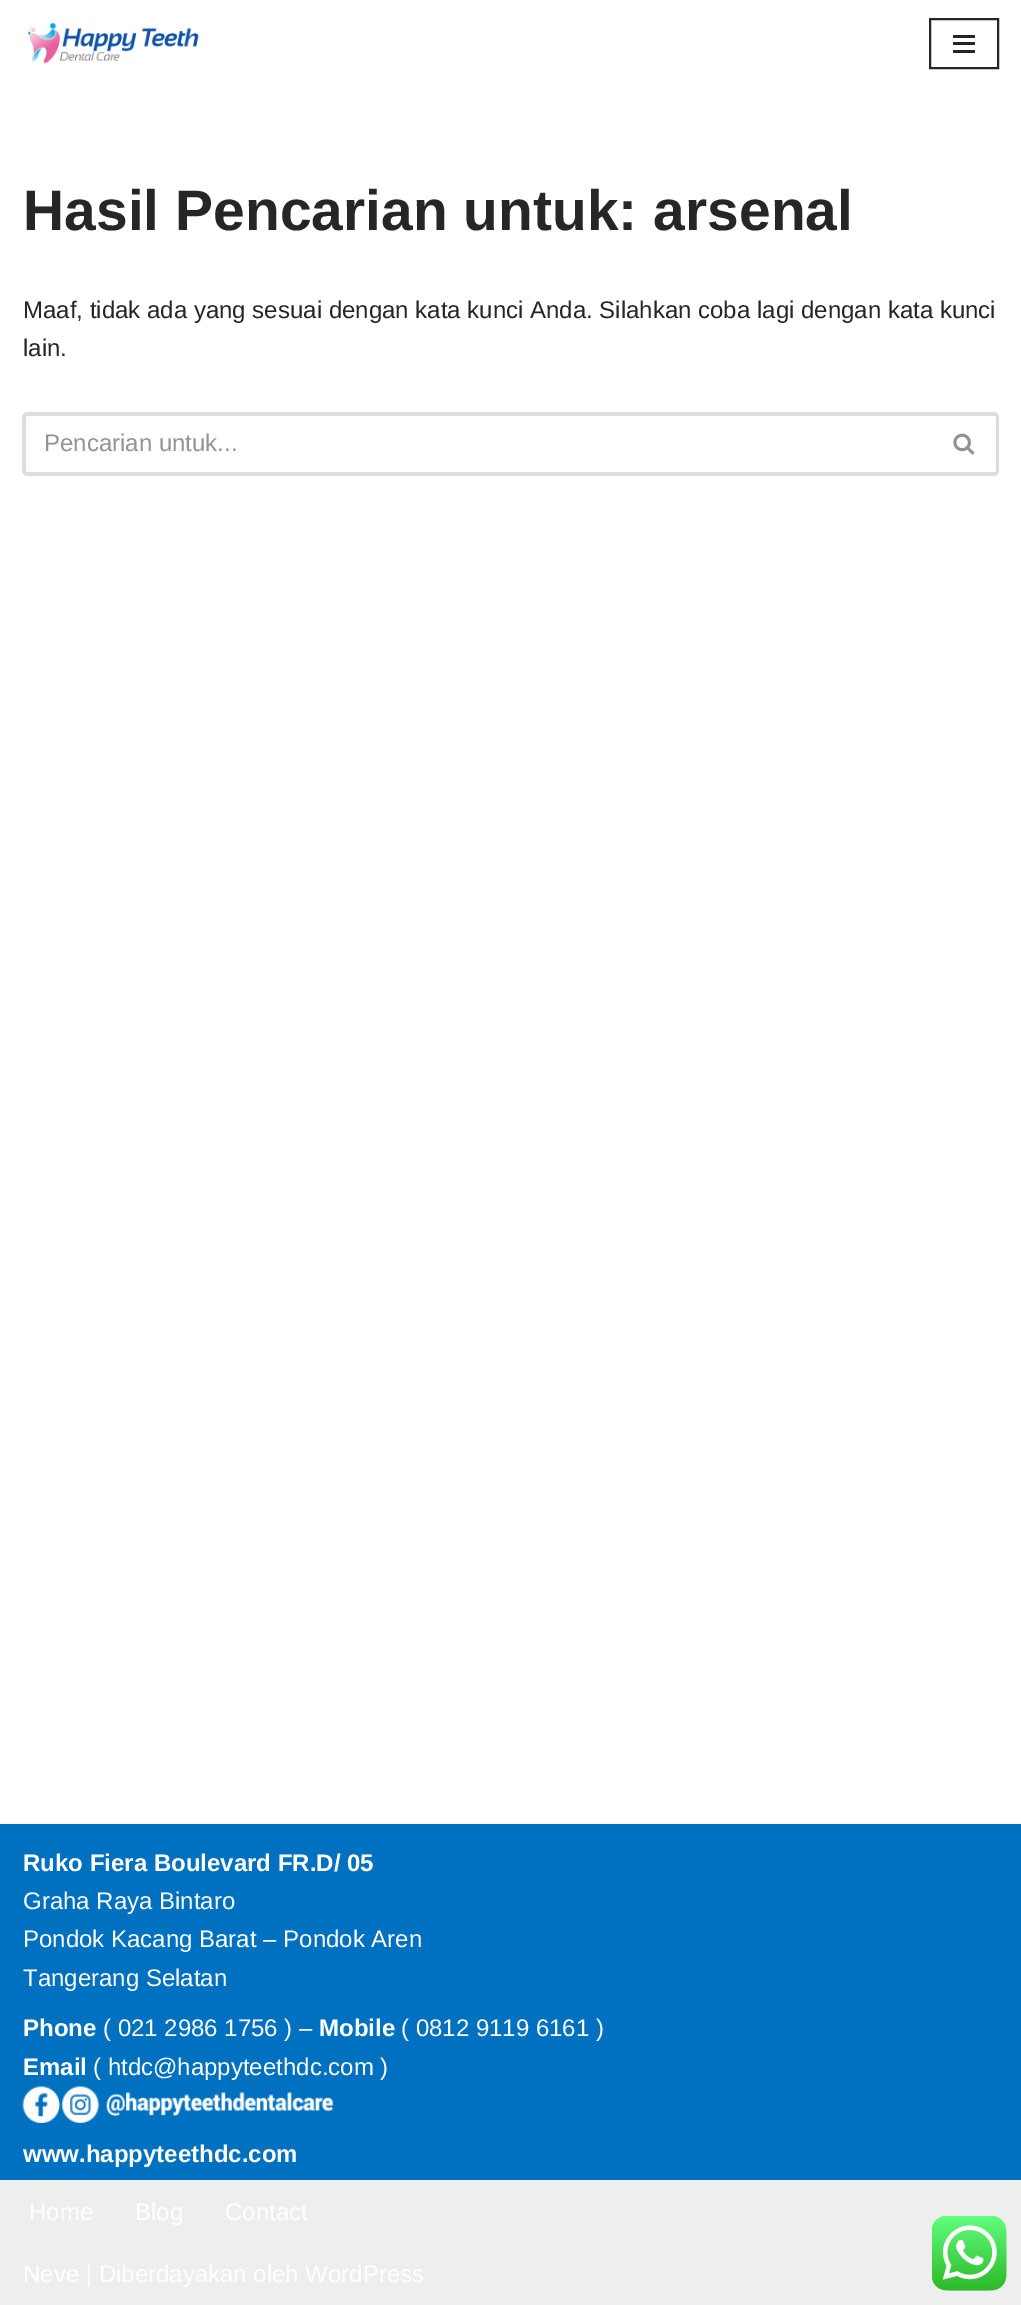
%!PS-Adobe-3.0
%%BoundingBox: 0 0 1021 2305
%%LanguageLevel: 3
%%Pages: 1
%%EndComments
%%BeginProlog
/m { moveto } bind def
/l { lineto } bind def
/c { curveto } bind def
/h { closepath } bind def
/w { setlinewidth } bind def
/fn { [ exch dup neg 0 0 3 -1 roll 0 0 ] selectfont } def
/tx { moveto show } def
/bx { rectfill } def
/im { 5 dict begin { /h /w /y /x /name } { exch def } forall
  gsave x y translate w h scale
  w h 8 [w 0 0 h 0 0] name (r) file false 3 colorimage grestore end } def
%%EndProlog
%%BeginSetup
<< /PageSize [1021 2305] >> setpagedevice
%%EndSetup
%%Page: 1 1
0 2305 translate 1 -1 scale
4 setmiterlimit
1 setgray
0 0 1021 2305 bx
(image0.raw) 27 22 172 42 im
0.153 0.149 0.149 setrgbcolor
2 w
930 19 68 49 rectstroke
953 35 22 3 bx
953 42 22 3 bx
953 50 22 3 bx
/LiberationSans-Bold 57 fn
(Hasil Pencarian untuk: arsenal) 23 230 tx
/LiberationSans-Regular 24 fn
(Maaf, tidak ada yang sesuai dengan kata kunci Anda. Silahkan coba lagi dengan kata kunci) 23 318 tx
(lain.) 23 356 tx
0.867 setgray
27 412 m 932 412 l 932 476 l 27 476 l 25 476 22 473 22 471 c 22 417 l 22 415 25 412 27 412 c h 27 416 m 932 416 l 932 472 l 27 472 l 26 472 26 472 26 471 c 26 417 l 26 416 26 416 27 416 c h eofill
0.576 setgray
(Pencarian untuk...) 44 451 tx
0.867 setgray
932 412 m 994 412 l 997 412 999 415 999 417 c 999 471 l 999 473 997 476 994 476 c 932 476 l h 932 416 m 994 416 l 995 416 996 416 996 417 c 996 471 l 996 472 995 472 994 472 c 932 472 l h eofill
(image1.raw) 953 433 22 22 im
0 0.439 0.753 setrgbcolor
0 1824 1021 356 bx
/LiberationSans-Bold 24 fn
1 setgray
(Ruko Fiera Boulevard FR.D/ 05) 23 1871 tx
/LiberationSans-Regular 24 fn
(Graha Raya Bintaro) 23 1909 tx
(Pondok Kacang Barat – Pondok Aren) 23 1947 tx
(Tangerang Selatan) 23 1986 tx
/LiberationSans-Bold 24 fn
(Phone) 23 2036 tx
/LiberationSans-Regular 24 fn
(\( 021 2986 1756 \) –) 103 2036 tx
/LiberationSans-Bold 24 fn
(Mobile) 319 2036 tx
/LiberationSans-Regular 24 fn
(\( 0812 9119 6161 \)) 401 2036 tx
/LiberationSans-Bold 24 fn
(Email) 23 2075 tx
/LiberationSans-Regular 24 fn
(\( htdc@happyteethdc.com \)) 93 2075 tx
(image2.raw) 22 2086 311 38 im
/LiberationSans-Bold 24 fn
(www.happyteethdc.com) 23 2162 tx
0.933 setgray
0 2180 1021 125 bx
/LiberationSans-Regular 24 fn
1 setgray
(Home) 29 2220 tx
(Blog) 135 2220 tx
(Contact) 225 2220 tx
(Neve | Diberdayakan oleh WordPress) 23 2282 tx
(image3.raw) 932 2216 75 75 im
showpage
%%EOF
